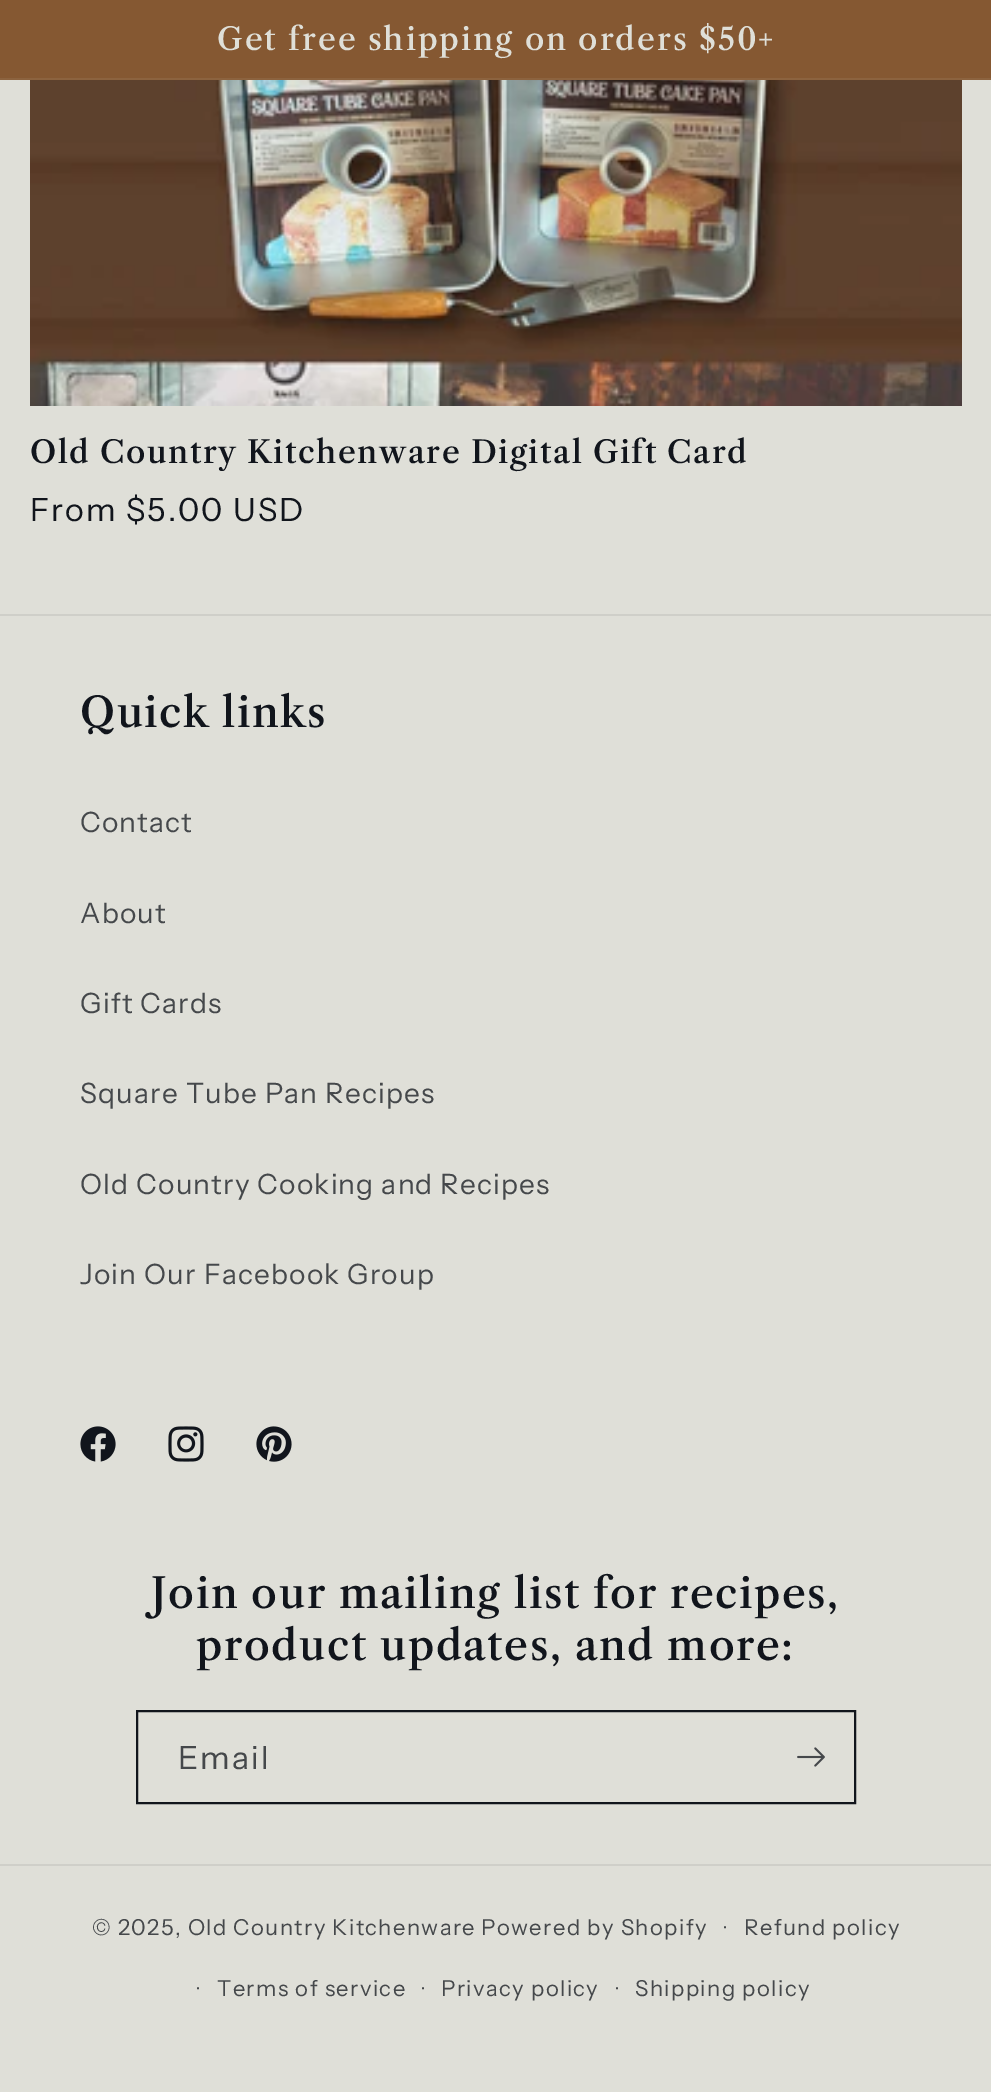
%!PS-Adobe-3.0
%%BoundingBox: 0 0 991 2092
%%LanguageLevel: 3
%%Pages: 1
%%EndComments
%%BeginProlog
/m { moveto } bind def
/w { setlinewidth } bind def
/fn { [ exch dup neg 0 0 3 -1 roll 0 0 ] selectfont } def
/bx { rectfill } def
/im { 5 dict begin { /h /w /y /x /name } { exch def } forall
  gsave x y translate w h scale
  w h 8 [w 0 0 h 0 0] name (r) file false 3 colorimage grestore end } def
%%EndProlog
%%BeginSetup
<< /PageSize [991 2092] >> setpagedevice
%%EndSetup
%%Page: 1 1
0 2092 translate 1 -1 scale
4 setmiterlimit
0.875 0.875 0.847 setrgbcolor
0 0 991 2092 bx
0.522 0.345 0.196 setrgbcolor
0 0 991 78 bx
0.549 0.388 0.247 setrgbcolor
0 78 991 2 bx
/LibreCaslonText-Medium 31.2 fn
0.875 0.875 0.847 setrgbcolor
217 50 m 2 0 (Get free shipping on orders $50+) ashow
(image0.raw) 30 80 932 326 im
0.067 0.082 0.11 setrgbcolor
30 463 m 1.55 0 (Old Country Kitchenware Digital Gift Card) ashow
/InstrumentSans-Regular 32 fn
30 521 m 2 0 (From $5.00 USD) ashow
0.812 0.812 0.788 setrgbcolor
0 614 991 2 bx
/LibreCaslonText-Medium 41.6 fn
0.067 0.082 0.11 setrgbcolor
80 727 m 1.55 0 (Quick links) ashow
/InstrumentSans-Regular 28 fn
0.271 0.282 0.294 setrgbcolor
80 832 m 1.2 0 (Contact) ashow
80 923 m 1.2 0 (About) ashow
80 1013 m 1.2 0 (Gift Cards) ashow
80 1103 m 1.2 0 (Square Tube Pan Recipes) ashow
80 1194 m 1.2 0 (Old Country Cooking and Recipes) ashow
80 1284 m 1.2 0 (Join Our Facebook Group) ashow
(image1.raw) 80 1426 36 36 im
(image2.raw) 168 1426 36 36 im
(image3.raw) 256 1426 36 36 im
/LibreCaslonText-Medium 41.6 fn
0.067 0.082 0.11 setrgbcolor
151 1608 m 1.55 0 (Join our mailing list for recipes,) ashow
196 1660 m 1.55 0 (product updates, and more:) ashow
2 w
137 1711 718 92 rectstroke
/InstrumentSans-Regular 32 fn
0.271 0.282 0.294 setrgbcolor
178 1769 m 2 0 (Email) ashow
(image4.raw) 797 1747 28 20 im
0.812 0.812 0.788 setrgbcolor
0 1864 991 2 bx
/InstrumentSans-Regular 22 fn
0.271 0.282 0.294 setrgbcolor
92 1935 m 1.4 0 (© 2025, Old Country Kitchenware) ashow
/InstrumentSans-Regular 20 fn
724 1935 m 1.4 0 (·) ashow
/InstrumentSans-Regular 22 fn
744 1935 m 1.4 0 (Refund policy) ashow
/InstrumentSans-Regular 20 fn
197 1996 m 1.4 0 (·) ashow
/InstrumentSans-Regular 22 fn
217 1996 m 1.4 0 (Terms of service) ashow
/InstrumentSans-Regular 20 fn
422 1996 m 1.4 0 (·) ashow
/InstrumentSans-Regular 22 fn
441 1996 m 1.4 0 (Privacy policy) ashow
/InstrumentSans-Regular 20 fn
616 1996 m 1.4 0 (·) ashow
/InstrumentSans-Regular 22 fn
635 1996 m 1.4 0 (Shipping policy) ashow
481 1935 m 1.4 0 (Powered by Shopify) ashow
showpage
%%EOF
